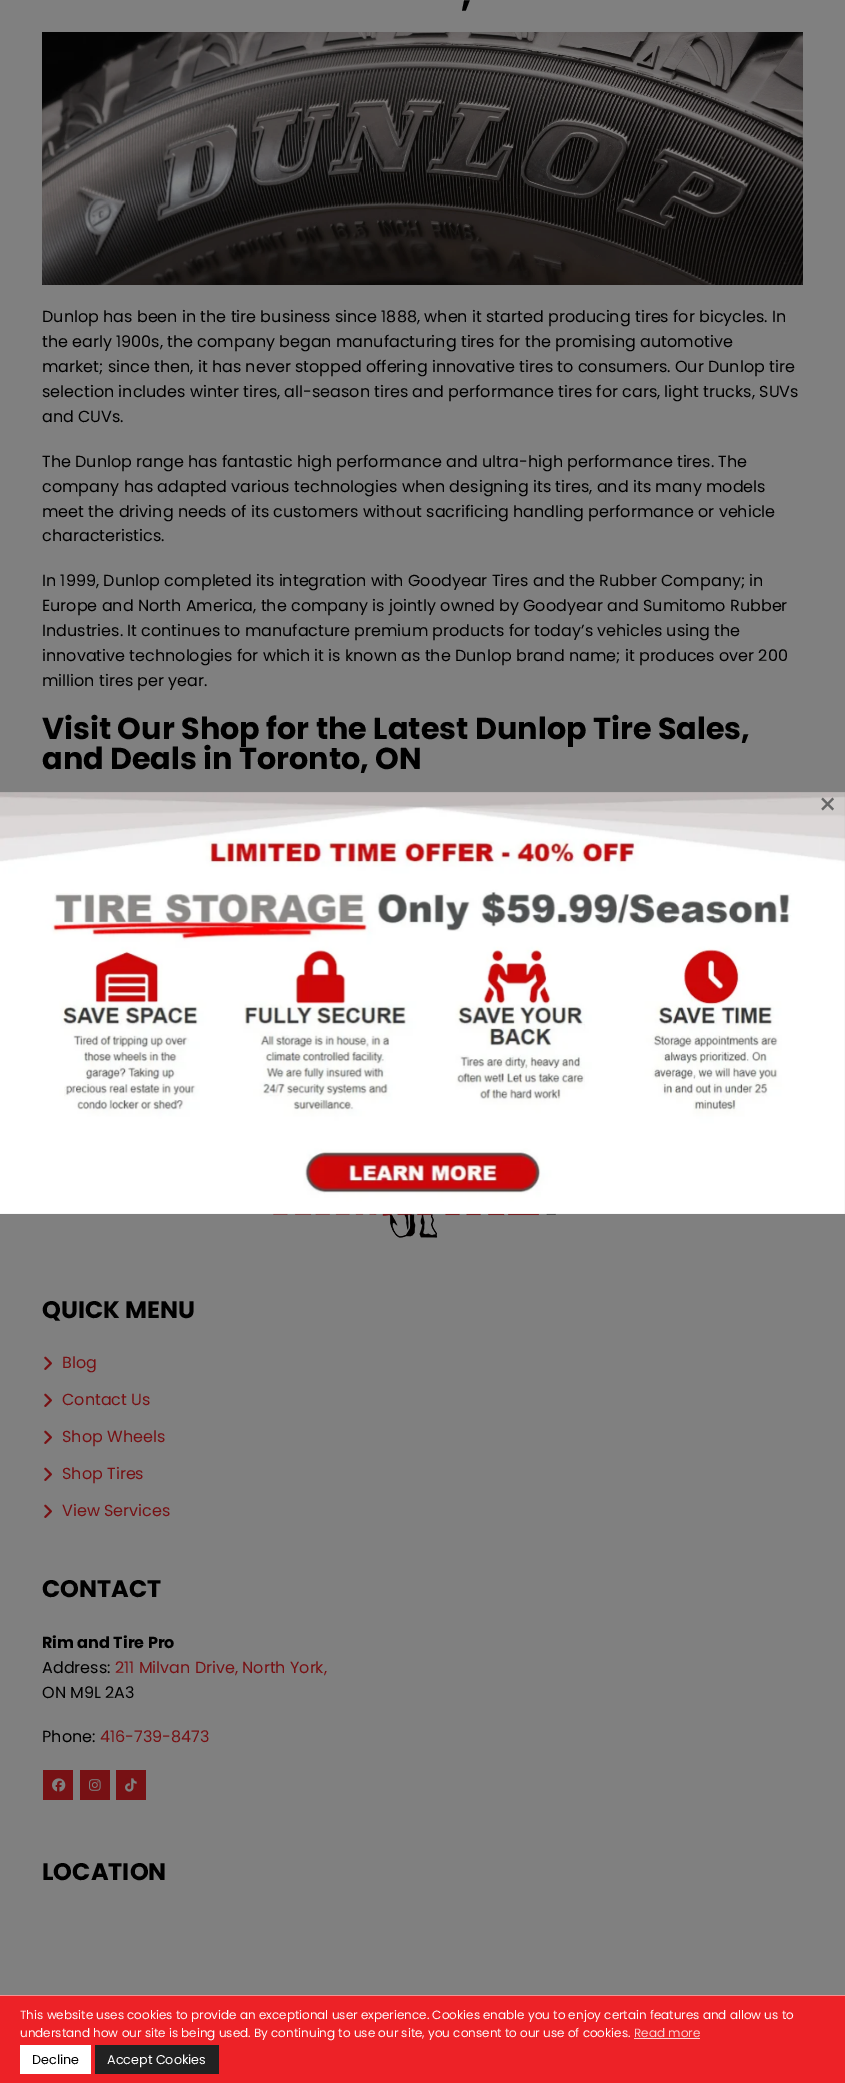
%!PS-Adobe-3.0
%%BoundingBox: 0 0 845 2083
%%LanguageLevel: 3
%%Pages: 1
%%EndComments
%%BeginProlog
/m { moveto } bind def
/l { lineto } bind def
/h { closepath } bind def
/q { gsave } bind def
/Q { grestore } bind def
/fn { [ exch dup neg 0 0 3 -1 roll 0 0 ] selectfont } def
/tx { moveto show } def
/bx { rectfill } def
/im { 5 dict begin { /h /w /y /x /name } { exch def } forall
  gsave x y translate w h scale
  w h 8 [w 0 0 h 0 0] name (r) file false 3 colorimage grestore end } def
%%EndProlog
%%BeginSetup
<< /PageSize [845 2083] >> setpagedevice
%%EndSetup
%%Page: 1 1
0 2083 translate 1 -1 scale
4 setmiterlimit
0.502 setgray
0 0 845 2083 bx
q 0 852 m 845 852 l 845 884 l 0 884 l h clip newpath
<< /ShadingType 2 /ColorSpace /DeviceRGB /Coords [422 -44 423 884] /Extend [true true] /Function << /FunctionType 3 /Domain [0 1] /Functions [<< /FunctionType 2 /Domain [0 1] /C0 [0.502 0.502 0.502] /C1 [0.502 0.502 0.502] /N 1 >> << /FunctionType 2 /Domain [0 1] /C0 [0.502 0.502 0.502] /C1 [0.471 0.471 0.471] /N 1 >>] /Bounds [0.95] /Encode [0 1 0 1] >> >> shfill Q
/Poppins-Bold 36 fn
0 setgray
(,) 461 6 tx
(image0.raw) 42 32 761 253 im
/Poppins-Regular 16 fn
(Dunlop has been in the tire business since 1888, when it started producing tires for bicycles. In) 42 322 tx
(the early 1900s, the company began manufacturing tires for the promising automotive) 42 347 tx
(market; since then, it has never stopped offering innovative tires to consumers. Our Dunlop tire) 42 372 tx
(selection includes winter tires, all-season tires and performance tires for cars, light trucks, SUVs) 42 397 tx
(and CUVs.) 42 422 tx
(The Dunlop range has fantastic high performance and ultra-high performance tires. The) 42 467 tx
(company has adapted various technologies when designing its tires, and its many models) 42 492 tx
(meet the driving needs of its customers without sacrificing handling performance or vehicle) 42 517 tx
(characteristics.) 42 541 tx
(In 1999, Dunlop completed its integration with Goodyear Tires and the Rubber Company; in) 42 586 tx
(Europe and North America, the company is jointly owned by Goodyear and Sumitomo Rubber) 42 611 tx
(Industries. It continues to manufacture premium products for today’s vehicles using the) 42 636 tx
(innovative technologies for which it is known as the Dunlop brand name; it produces over 200) 42 661 tx
(million tires per year.) 42 686 tx
/Poppins-Bold 30.25 fn
(Visit Our Shop for the Latest Dunlop Tire Sales,) 42 739 tx
(and Deals in Toronto, ON) 42 769 tx
(image2.raw) 273 1213 283 25 im
(image1.raw) 0 792 845 422 im
/Poppins-Regular 30 fn
0.4 setgray
(×) 818 815 tx
/Poppins-Bold 24 fn
0 setgray
(QUICK MENU) 42 1318 tx
(image3.raw) 44 1356 8 14 im
/Poppins-Regular 16 fn
0.467 0.067 0.078 setrgbcolor
(Blog) 62 1368 tx
(image3.raw) 44 1393 8 14 im
(Contact Us) 62 1405 tx
(image3.raw) 44 1430 8 14 im
(Shop Wheels) 62 1442 tx
(image3.raw) 44 1467 8 14 im
(Shop Tires) 62 1479 tx
(image3.raw) 44 1504 8 14 im
(View Services) 62 1516 tx
/Poppins-Bold 24 fn
0 setgray
(CONTACT) 42 1597 tx
/Poppins-Bold 16 fn
(Rim and Tire Pro) 42 1648 tx
/Poppins-Regular 16 fn
(Address:) 42 1673 tx
0.467 0.067 0.078 setrgbcolor
(211 Milvan Drive, North York,) 115 1673 tx
0 setgray
(ON M9L 2A3) 42 1698 tx
(Phone:) 42 1742 tx
0.467 0.067 0.078 setrgbcolor
(416-739-8473) 100 1742 tx
43 1770 30 30 bx
(image4.raw) 52 1778 14 14 im
80 1770 30 30 bx
(image5.raw) 89 1779 12 12 im
116 1770 30 30 bx
(image6.raw) 125 1778 12 14 im
/Poppins-Bold 24 fn
0 setgray
(LOCATION) 42 1880 tx
0.929 0.133 0.153 setrgbcolor
0 1996 845 87 bx
0.965 0.569 0.576 setrgbcolor
0 1995 845 1 bx
/Poppins-Regular 12 fn
1 setgray
(This website uses cookies to provide an exceptional user experience. Cookies enable you to enjoy certain features and allow us to) 20 2019 tx
(understand how our site is being used. By continuing to use our site, you consent to our use of cookies.) 20 2037 tx
0.984 0.827 0.831 setrgbcolor
(Read more) 634 2037 tx
634 2038 66 1 bx
1 setgray
20 2045 71 29 bx
/Poppins-Regular 12.75 fn
0 setgray
(Decline) 32 2064 tx
0.133 setgray
95 2045 124 29 bx
1 setgray
(Accept Cookies) 107 2064 tx
showpage
%%EOF
